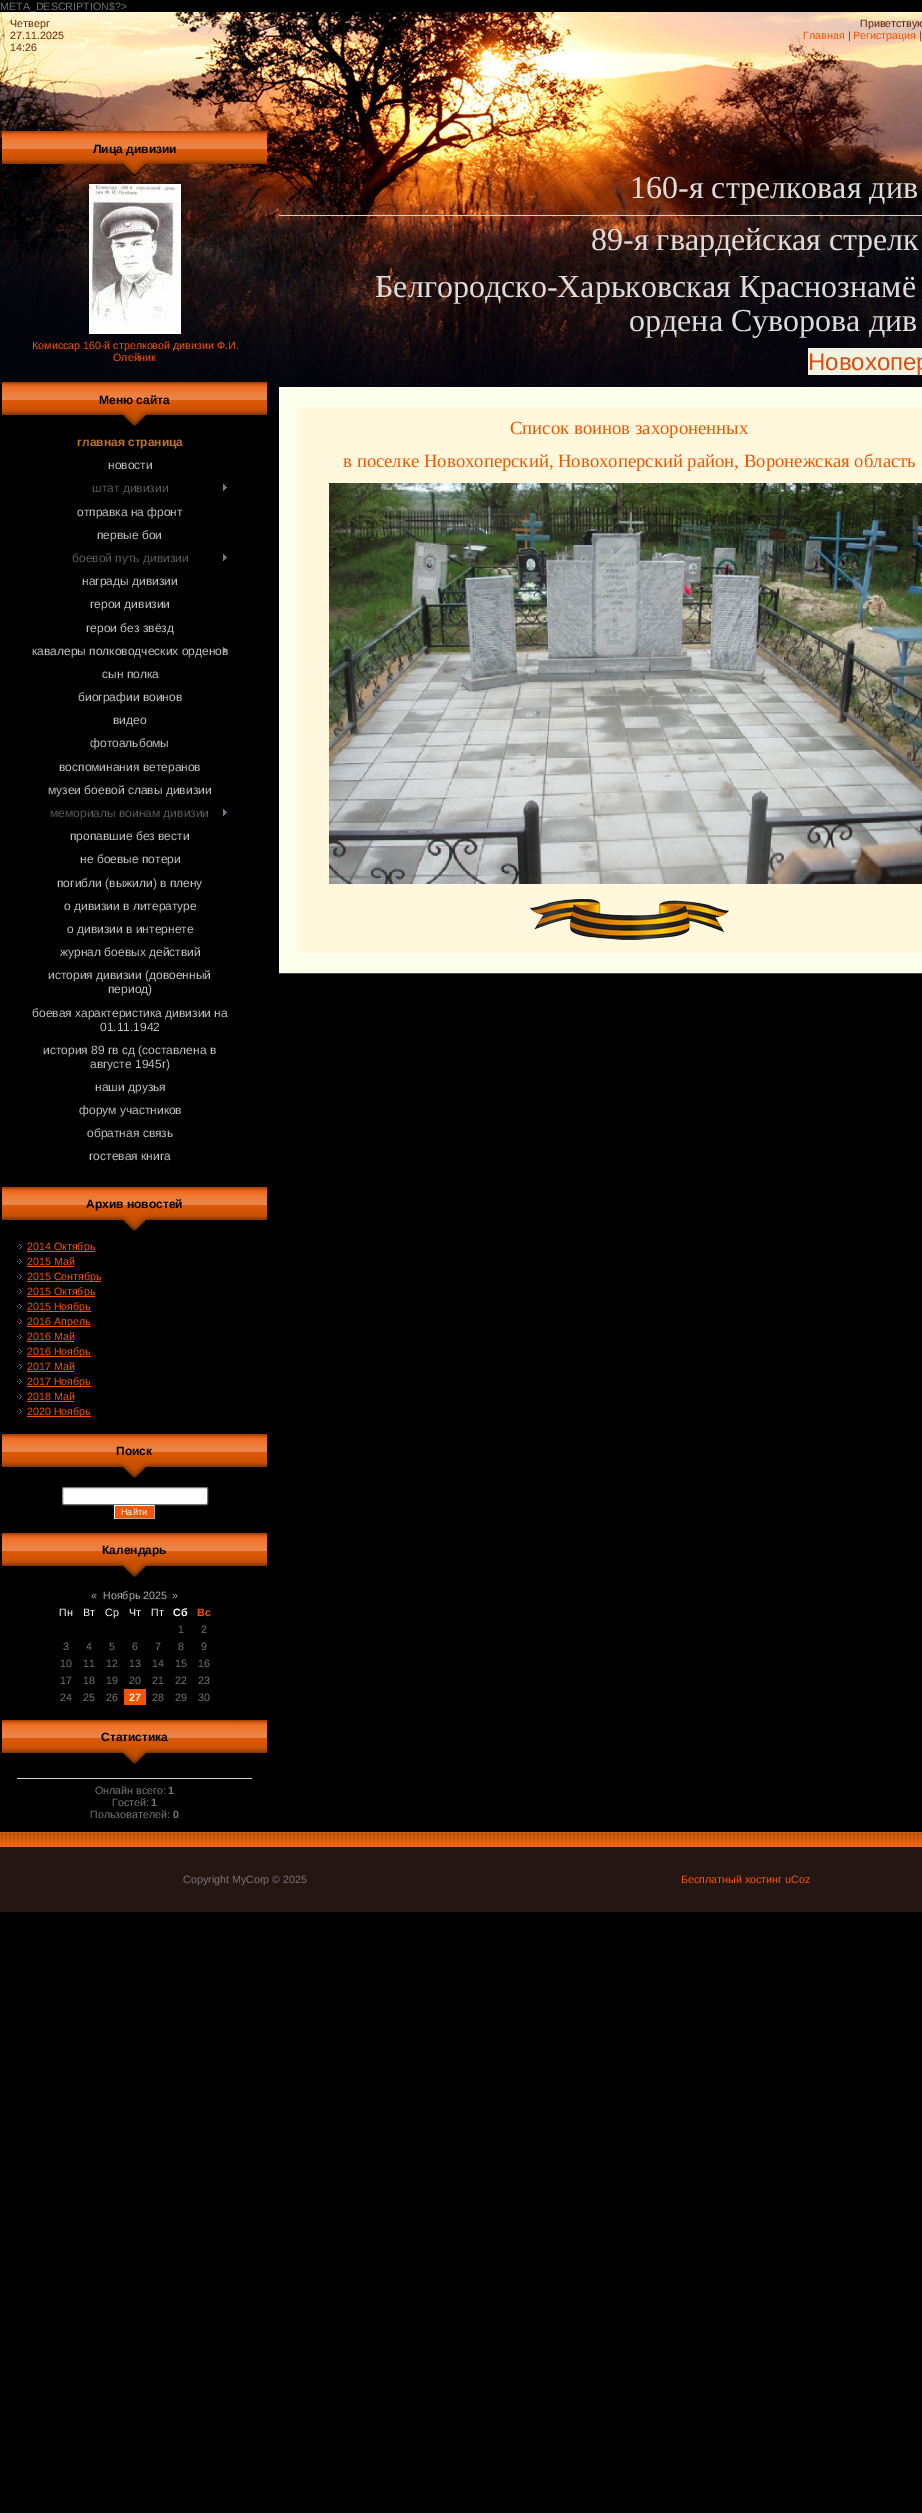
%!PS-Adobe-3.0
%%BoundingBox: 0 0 922 2513
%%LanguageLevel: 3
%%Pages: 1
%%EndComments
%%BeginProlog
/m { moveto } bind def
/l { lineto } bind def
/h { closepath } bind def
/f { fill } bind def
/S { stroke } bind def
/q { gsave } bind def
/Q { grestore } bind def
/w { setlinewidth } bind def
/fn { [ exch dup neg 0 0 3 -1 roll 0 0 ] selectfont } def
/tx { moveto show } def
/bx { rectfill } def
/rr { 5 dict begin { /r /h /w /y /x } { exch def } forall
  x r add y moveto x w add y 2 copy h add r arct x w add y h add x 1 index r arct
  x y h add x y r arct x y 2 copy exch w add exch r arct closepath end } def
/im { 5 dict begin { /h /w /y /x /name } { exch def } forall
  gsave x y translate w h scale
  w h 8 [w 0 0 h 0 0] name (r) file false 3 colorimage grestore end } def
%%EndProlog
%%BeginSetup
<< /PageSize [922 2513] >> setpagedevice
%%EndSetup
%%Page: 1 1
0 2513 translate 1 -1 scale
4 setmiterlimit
0 setgray
0 0 922 2513 bx
(image0.raw) 0 12 922 400 im
/LiberationSans-Regular 10.7 fn
0.459 setgray
(META_DESCRIPTION$?>) 0 10 tx
0.396 0.137 0.02 setrgbcolor
(Четверг) 10 27 tx
(27.11.2025) 10 39 tx
(14:26) 10 51 tx
(Приветствую) 860 27 tx
0.965 0.329 0 setrgbcolor
(Главная) 803 39 tx
0.396 0.137 0.02 setrgbcolor
(|) 848 39 tx
0.965 0.329 0 setrgbcolor
(Регистрация) 853 39 tx
0.396 0.137 0.02 setrgbcolor
(|) 919 39 tx
(image1.raw) 2 131 265 45 im
/LiberationSans-Bold 12 fn
0 setgray
(Лица дивизии) 93 153 tx
(image2.raw) 89 184 92 150 im
/LiberationSans-Regular 10.7 fn
0.965 0.329 0 setrgbcolor
(Комиссар 160-й стрелковой дивизии Ф.И.) 32 349 tx
(Олейник) 113 361 tx
(image3.raw) 2 382 265 44 im
/LiberationSans-Bold 12 fn
0 setgray
(Меню сайта) 99 404 tx
0.745 0.451 0.149 setrgbcolor
(главная страница) 77 446 tx
/LiberationSans-Regular 12 fn
0.749 setgray
(новости) 108 469 tx
0.345 setgray
(штат дивизии) 92 492 tx
(image4.raw) 223 484 4 7 im
0.749 setgray
(отправка на фронт) 77 516 tx
(первые бои) 97 539 tx
0.345 setgray
(боевой путь дивизии) 72 562 tx
(image4.raw) 223 554 4 7 im
0.749 setgray
(награды дивизии) 82 585 tx
(герои дивизии) 90 608 tx
(герои без звёзд) 86 632 tx
(кавалеры полководческих орденов) 32 655 tx
(image5.raw) 223 647 4 7 im
(сын полка) 102 678 tx
(биографии воинов) 78 701 tx
(видео) 113 724 tx
(фотоальбомы) 90 747 tx
(воспоминания ветеранов) 59 771 tx
(музеи боевой славы дивизии) 48 794 tx
0.345 setgray
(мемориалы воинам дивизии) 50 817 tx
(image4.raw) 223 809 4 7 im
0.749 setgray
(пропавшие без вести) 70 840 tx
(не боевые потери) 80 863 tx
(погибли \(выжили\) в плену) 57 887 tx
(о дивизии в литературе) 64 910 tx
(о дивизии в интернете) 67 933 tx
(журнал боевых действий) 60 956 tx
(история дивизии \(довоенный) 48 979 tx
(период\)) 108 993 tx
(боевая характеристика дивизии на) 32 1017 tx
(01.11.1942) 100 1031 tx
(история 89 гв сд \(составлена в) 43 1054 tx
(августе 1945г\)) 90 1068 tx
(наши друзья) 95 1091 tx
(форум участников) 79 1114 tx
(обратная связь) 87 1137 tx
(гостевая книга) 89 1160 tx
(image3.raw) 2 1187 265 44 im
/LiberationSans-Bold 12 fn
0 setgray
(Архив новостей) 86 1208 tx
(image6.raw) 17 1244 5 5 im
0.965 0.329 0 setrgbcolor
27 1251 68 1 bx
/LiberationSans-Regular 10.7 fn
(2014 Октябрь) 27 1250 tx
(image6.raw) 17 1259 5 5 im
(2015 Май) 27 1265 tx
27 1266 47 1 bx
(image6.raw) 17 1274 5 5 im
27 1281 74 1 bx
(2015 Сентябрь) 27 1280 tx
(image6.raw) 17 1289 5 5 im
27 1296 68 1 bx
(2015 Октябрь) 27 1295 tx
(image6.raw) 17 1304 5 5 im
27 1311 64 1 bx
(2015 Ноябрь) 27 1310 tx
(image6.raw) 17 1319 5 5 im
27 1326 63 1 bx
(2016 Апрель) 27 1325 tx
(image6.raw) 17 1334 5 5 im
(2016 Май) 27 1340 tx
27 1341 47 1 bx
(image6.raw) 17 1349 5 5 im
27 1356 64 1 bx
(2016 Ноябрь) 27 1355 tx
(image6.raw) 17 1364 5 5 im
(2017 Май) 27 1370 tx
27 1371 47 1 bx
(image6.raw) 17 1379 5 5 im
27 1386 64 1 bx
(2017 Ноябрь) 27 1385 tx
(image6.raw) 17 1394 5 5 im
(2018 Май) 27 1400 tx
27 1401 47 1 bx
(image6.raw) 17 1409 5 5 im
27 1416 64 1 bx
(2020 Ноябрь) 27 1415 tx
(image3.raw) 2 1434 265 44 im
/LiberationSans-Bold 12 fn
0 setgray
(Поиск) 116 1455 tx
1 setgray
62.5 1487.5 145 17 1.5 rr q f Q
0.463 setgray
S
0.965 0.329 0 setrgbcolor
115 1506 39 12 bx
1 setgray
114 1505 41 1 bx
0.667 setgray
154 1505 1 14 bx
114 1518 41 1 bx
1 setgray
114 1505 1 14 bx
/LiberationSans-Regular 9 fn
(Найти) 121 1515 tx
(image3.raw) 2 1533 265 44 im
/LiberationSans-Bold 12 fn
0 setgray
(Календарь) 102 1554 tx
/LiberationSans-Regular 10.7 fn
0.678 setgray
(«) 91 1599 tx
(Ноябрь 2025) 103 1599 tx
(») 172 1599 tx
0.992 1 0.929 setrgbcolor
(Пн) 59 1616 tx
(Вт) 83 1616 tx
(Ср) 105 1616 tx
(Чт) 129 1616 tx
(Пт) 151 1616 tx
/LiberationSans-Bold 10.7 fn
(Сб) 173 1616 tx
0.965 0.329 0 setrgbcolor
(Вс) 197 1616 tx
/LiberationSans-Regular 10.7 fn
0.459 setgray
(1) 178 1633 tx
(2) 201 1633 tx
(3) 63 1650 tx
(4) 86 1650 tx
(5) 109 1650 tx
(6) 132 1650 tx
(7) 155 1650 tx
(8) 178 1650 tx
(9) 201 1650 tx
(10) 60 1667 tx
(11) 83 1667 tx
(12) 106 1667 tx
(13) 129 1667 tx
(14) 152 1667 tx
(15) 175 1667 tx
(16) 198 1667 tx
(17) 60 1684 tx
(18) 83 1684 tx
(19) 106 1684 tx
(20) 129 1684 tx
(21) 152 1684 tx
(22) 175 1684 tx
(23) 198 1684 tx
(24) 60 1701 tx
(25) 83 1701 tx
(26) 106 1701 tx
0.965 0.329 0 setrgbcolor
124 1689 22 16 bx
/LiberationSans-Bold 10.7 fn
0.992 1 0.929 setrgbcolor
(27) 129 1701 tx
/LiberationSans-Regular 10.7 fn
0.459 setgray
(28) 152 1701 tx
(29) 175 1701 tx
(30) 198 1701 tx
(image3.raw) 2 1720 265 44 im
/LiberationSans-Bold 12 fn
0 setgray
(Статистика) 101 1741 tx
0.827 0.835 0.776 setrgbcolor
17 1778 235 1 bx
/LiberationSans-Regular 10.7 fn
0.459 setgray
(Онлайн всего:) 95 1794 tx
/LiberationSans-Bold 10.7 fn
(1) 168 1794 tx
/LiberationSans-Regular 10.7 fn
(Гостей:) 112 1806 tx
/LiberationSans-Bold 10.7 fn
(1) 151 1806 tx
/LiberationSans-Regular 10.7 fn
(Пользователей:) 90 1818 tx
/LiberationSans-Bold 10.7 fn
(0) 173 1818 tx
/LiberationSerif-Regular 32 fn
0.863 setgray
(160-я стрелковая див) 630 198 tx
0.827 0.835 0.776 setrgbcolor
279 215 643 1 bx
0.863 setgray
(89-я гвардейская стрелк) 591 250 tx
(Белгородско-Харьковская Краснознамё) 375 297 tx
(ордена Суворова див) 629 331 tx
0.945 0.953 0.886 setrgbcolor
808 348 114 27 bx
/LiberationSans-Regular 24 fn
0.855 0.302 0.055 setrgbcolor
(Новохопер) 808 370 tx
1 0.973 0.863 setrgbcolor
289 397 m 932 397 l 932 963 l 289 963 l h q f Q
0.992 1 0.929 setrgbcolor
20 w
S
/LiberationSerif-Regular 18.7 fn
0.965 0.329 0 setrgbcolor
(Список воинов захороненных) 510 434 tx
(в поселке Новохоперский, Новохоперский район, Воронежская область) 343 467 tx
(image7.raw) 329 483 593 401 im
(image8.raw) 529 899 200 41 im
0.145 0.086 0.075 setrgbcolor
0 1847 922 65 bx
(image9.raw) 0 1832 922 15 im
/LiberationSans-Regular 10.7 fn
0.459 setgray
(Copyright MyCorp © 2025) 183 1883 tx
0.965 0.329 0 setrgbcolor
(Бесплатный хостинг uCoz) 681 1883 tx
showpage
%%EOF
